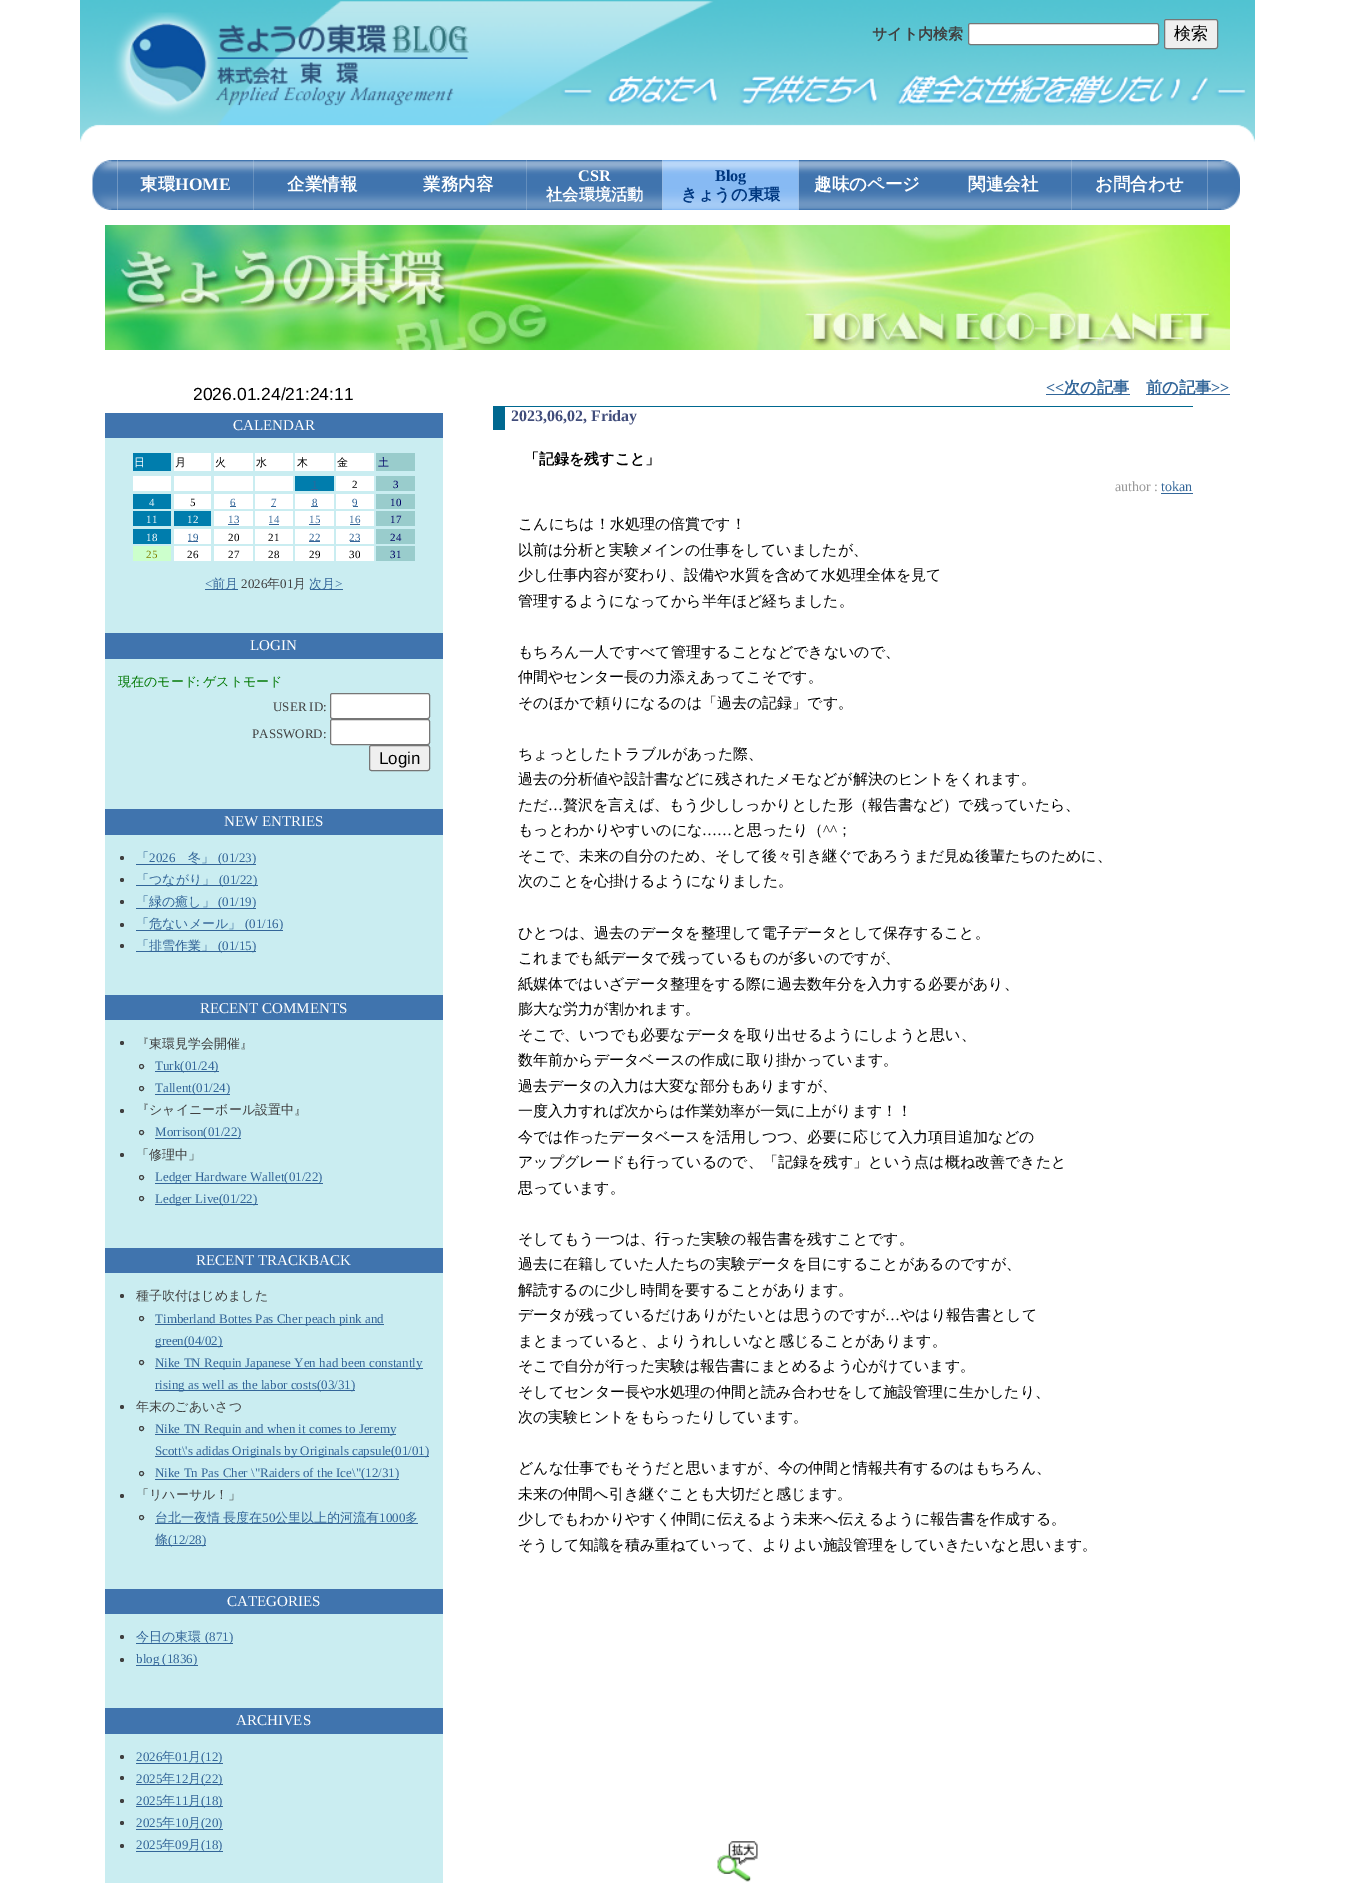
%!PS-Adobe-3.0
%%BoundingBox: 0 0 1359 1883
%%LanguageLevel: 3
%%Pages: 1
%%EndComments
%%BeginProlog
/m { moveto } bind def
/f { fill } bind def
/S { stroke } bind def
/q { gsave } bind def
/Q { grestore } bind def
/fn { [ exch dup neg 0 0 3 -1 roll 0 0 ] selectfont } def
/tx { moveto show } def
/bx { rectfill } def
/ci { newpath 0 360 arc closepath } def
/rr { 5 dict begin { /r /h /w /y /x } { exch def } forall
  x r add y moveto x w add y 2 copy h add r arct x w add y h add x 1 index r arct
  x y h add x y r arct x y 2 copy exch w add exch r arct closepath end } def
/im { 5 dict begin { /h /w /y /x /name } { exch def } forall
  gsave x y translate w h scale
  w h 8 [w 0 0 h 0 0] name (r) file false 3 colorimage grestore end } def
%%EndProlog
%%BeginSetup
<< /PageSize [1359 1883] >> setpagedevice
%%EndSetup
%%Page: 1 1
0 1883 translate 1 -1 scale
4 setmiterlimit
1 setgray
0 0 1359 1883 bx
(image0.raw) 80 0 1175 142 im
(image1.raw) 105 12 387 113 im
/WenQuanYiZenHei-Bold 15 fn
0.251 setgray
(サイト内検索) 872 39 tx
1 setgray
968.5 23.5 190 21 2 rr q f Q
0.463 setgray
S
0.937 setgray
1164.5 19.5 53 29 2 rr q f Q
0.463 setgray
S
/WenQuanYiZenHei-Medium 17 fn
0 setgray
(検索) 1174 39 tx
(image2.raw) 92 160 26 50 im
(image3.raw) 117 160 137 50 im
/WenQuanYiZenHei-Bold 17.5 fn
1 setgray
(東環) 140 190 tx
/LiberationSerif-Bold 17.5 fn
(HOME) 175 190 tx
(image4.raw) 253 160 137 50 im
/WenQuanYiZenHei-Bold 17.5 fn
(企業情報) 287 190 tx
(image5.raw) 390 160 137 50 im
(業務内容) 423 190 tx
(image6.raw) 526 160 137 50 im
/LiberationSerif-Bold 16.25 fn
(CSR) 578 181 tx
/WenQuanYiZenHei-Bold 16.25 fn
(社会環境活動) 546 200 tx
(image7.raw) 662 160 137 50 im
/LiberationSerif-Bold 16.25 fn
0 0.22 0.502 setrgbcolor
(Blog) 715 181 tx
/WenQuanYiZenHei-Bold 16.25 fn
(きょうの東環) 681 200 tx
(image8.raw) 798 160 137 50 im
/WenQuanYiZenHei-Bold 17.5 fn
1 setgray
(趣味のページ) 814 190 tx
(image5.raw) 935 160 137 50 im
(関連会社) 968 190 tx
(image6.raw) 1071 160 137 50 im
(お問合わせ) 1095 190 tx
(image9.raw) 1207 160 33 50 im
(image10.raw) 105 225 1125 125 im
/LiberationSans-Regular 17.5 fn
0 setgray
(2026.01.24/21:24:11) 193 400 tx
0.251 0.455 0.682 setrgbcolor
105 413 338 25 bx
/LiberationSerif-Regular 15 fn
1 setgray
(CALENDAR) 233 430 tx
0.792 0.929 0.945 setrgbcolor
105 438 338 195 bx
0 0.49 0.678 setrgbcolor
133 453 38 18 bx
/WenQuanYiZenHei-Medium 11 fn
1 setgray
(日) 134 466 tx
174 453 37 18 bx
0 setgray
(月) 175 466 tx
1 setgray
214 453 39 18 bx
0 setgray
(火) 215 466 tx
1 setgray
255 453 38 18 bx
0 setgray
(水) 256 466 tx
1 setgray
295 453 39 18 bx
0 setgray
(木) 297 466 tx
1 setgray
336 453 38 18 bx
0 setgray
(金) 337 466 tx
0.6 0.8 0.8 setrgbcolor
376 453 39 18 bx
0 0 0.4 setrgbcolor
(土) 378 466 tx
1 setgray
133 476 38 15 bx
174 476 37 15 bx
214 476 39 15 bx
255 476 38 15 bx
0 0.49 0.678 setrgbcolor
295 476 39 15 bx
/LiberationSerif-Regular 11 fn
0.2 0.4 0.6 setrgbcolor
(1) 312 488 tx
311 489 7 1 bx
1 setgray
336 476 38 15 bx
0 setgray
(2) 352 488 tx
0.6 0.8 0.8 setrgbcolor
376 476 39 15 bx
0 0 0.4 setrgbcolor
(3) 393 488 tx
0 0.49 0.678 setrgbcolor
133 494 38 15 bx
1 setgray
(4) 149 506 tx
174 494 37 15 bx
0 setgray
(5) 190 506 tx
1 setgray
214 494 39 15 bx
0.2 0.4 0.6 setrgbcolor
230 506 6 1 bx
(6) 230 506 tx
1 setgray
255 494 38 15 bx
0.2 0.4 0.6 setrgbcolor
(7) 271 506 tx
271 506 5 1 bx
1 setgray
295 494 39 15 bx
0.2 0.4 0.6 setrgbcolor
311 506 7 1 bx
(8) 312 506 tx
1 setgray
336 494 38 15 bx
0.2 0.4 0.6 setrgbcolor
353 506 5 1 bx
(9) 352 506 tx
0.6 0.8 0.8 setrgbcolor
376 494 39 15 bx
0 0 0.4 setrgbcolor
(10) 390 506 tx
0 0.49 0.678 setrgbcolor
133 511 38 15 bx
1 setgray
(11) 146 523 tx
0 0.49 0.678 setrgbcolor
174 511 37 15 bx
1 setgray
(12) 187 523 tx
214 511 39 15 bx
0.2 0.4 0.6 setrgbcolor
(13) 228 523 tx
228 524 11 1 bx
1 setgray
255 511 38 15 bx
0.2 0.4 0.6 setrgbcolor
(14) 268 523 tx
269 524 10 1 bx
1 setgray
295 511 39 15 bx
0.2 0.4 0.6 setrgbcolor
(15) 309 523 tx
309 524 11 1 bx
1 setgray
336 511 38 15 bx
0.2 0.4 0.6 setrgbcolor
(16) 349 523 tx
350 524 10 1 bx
0.6 0.8 0.8 setrgbcolor
376 511 39 15 bx
0 0 0.4 setrgbcolor
(17) 390 523 tx
0 0.49 0.678 setrgbcolor
133 529 38 15 bx
1 setgray
(18) 146 541 tx
174 529 37 15 bx
0.2 0.4 0.6 setrgbcolor
188 541 10 1 bx
(19) 187 541 tx
1 setgray
214 529 39 15 bx
0 setgray
(20) 228 541 tx
1 setgray
255 529 38 15 bx
0 setgray
(21) 268 541 tx
1 setgray
295 529 39 15 bx
0.2 0.4 0.6 setrgbcolor
(22) 309 541 tx
309 541 11 1 bx
1 setgray
336 529 38 15 bx
0.2 0.4 0.6 setrgbcolor
350 541 10 1 bx
(23) 349 541 tx
0.6 0.8 0.8 setrgbcolor
376 529 39 15 bx
0 0 0.4 setrgbcolor
(24) 390 541 tx
0.8 1 0.8 setrgbcolor
133 546 38 15 bx
0.502 0.502 0 setrgbcolor
(25) 146 558 tx
1 setgray
174 546 37 15 bx
0 setgray
(26) 187 558 tx
1 setgray
214 546 39 15 bx
0 setgray
(27) 228 558 tx
1 setgray
255 546 38 15 bx
0 setgray
(28) 268 558 tx
1 setgray
295 546 39 15 bx
0 setgray
(29) 309 558 tx
1 setgray
336 546 38 15 bx
0 setgray
(30) 349 558 tx
0.6 0.8 0.8 setrgbcolor
376 546 39 15 bx
0 0 0.4 setrgbcolor
(31) 390 558 tx
/LiberationSerif-Regular 13 fn
0.2 0.4 0.6 setrgbcolor
(<) 205 588 tx
205 589 33 1 bx
/WenQuanYiZenHei-Medium 13 fn
(前月) 212 588 tx
/LiberationSerif-Regular 13 fn
0.251 setgray
(2026) 241 588 tx
/WenQuanYiZenHei-Medium 13 fn
(年) 267 588 tx
/LiberationSerif-Regular 13 fn
(01) 280 588 tx
/WenQuanYiZenHei-Medium 13 fn
(月) 293 588 tx
0.2 0.4 0.6 setrgbcolor
310 589 33 1 bx
(次月) 309 588 tx
/LiberationSerif-Regular 13 fn
(>) 335 588 tx
0.251 0.455 0.682 setrgbcolor
105 633 338 26 bx
/LiberationSerif-Regular 15 fn
1 setgray
(LOGIN) 250 650 tx
0.792 0.929 0.945 setrgbcolor
105 659 338 150 bx
/WenQuanYiZenHei-Medium 13 fn
0 0.467 0 setrgbcolor
(現在のモード) 118 686 tx
/LiberationSerif-Regular 13 fn
(:) 196 686 tx
/WenQuanYiZenHei-Medium 13 fn
(ゲストモード) 203 686 tx
/LiberationSerif-Regular 13 fn
0.251 setgray
(USER ID:) 273 711 tx
1 setgray
330.5 693.5 99 25 2 rr q f Q
0.463 setgray
S
0.251 setgray
(PASSWORD:) 252 738 tx
1 setgray
330.5 719.5 99 25 2 rr q f Q
0.463 setgray
S
0.937 setgray
369.5 745.5 60 25 2 rr q f Q
0.463 setgray
S
/LiberationSans-Regular 17 fn
0 setgray
(Login) 379 764 tx
0.251 0.455 0.682 setrgbcolor
105 809 338 26 bx
/LiberationSerif-Regular 15 fn
1 setgray
(NEW ENTRIES) 224 826 tx
0.792 0.929 0.945 setrgbcolor
105 835 338 160 bx
0.251 setgray
122 858 2 ci f
/WenQuanYiZenHei-Medium 13 fn
0.2 0.4 0.6 setrgbcolor
(「) 136 862 tx
/LiberationSerif-Regular 13 fn
(2026) 149 862 tx
/WenQuanYiZenHei-Medium 13 fn
(冬」) 188 862 tx
136 864 120 1 bx
/LiberationSerif-Regular 13 fn
(\(01/23\)) 218 862 tx
0.251 setgray
122 880 2 ci f
0.2 0.4 0.6 setrgbcolor
136 885 122 1 bx
/WenQuanYiZenHei-Medium 13 fn
(「つながり」) 136 884 tx
/LiberationSerif-Regular 13 fn
(\(01/22\)) 219 884 tx
0.251 setgray
122 902 2 ci f
/WenQuanYiZenHei-Medium 13 fn
0.2 0.4 0.6 setrgbcolor
(「緑の癒し」) 136 906 tx
136 908 120 1 bx
/LiberationSerif-Regular 13 fn
(\(01/19\)) 218 906 tx
0.251 setgray
122 925 2 ci f
0.2 0.4 0.6 setrgbcolor
136 930 147 1 bx
/WenQuanYiZenHei-Medium 13 fn
(「危ないメール」) 136 928 tx
/LiberationSerif-Regular 13 fn
(\(01/16\)) 245 928 tx
0.251 setgray
122 946 2 ci f
0.2 0.4 0.6 setrgbcolor
136 951 120 1 bx
/WenQuanYiZenHei-Medium 13 fn
(「排雪作業」) 136 950 tx
/LiberationSerif-Regular 13 fn
(\(01/15\)) 218 950 tx
0.251 0.455 0.682 setrgbcolor
105 995 338 25 bx
/LiberationSerif-Regular 15 fn
1 setgray
(RECENT COMMENTS) 200 1013 tx
0.792 0.929 0.945 setrgbcolor
105 1020 338 228 bx
0.251 setgray
122 1043 2 ci f
/WenQuanYiZenHei-Medium 13 fn
(『東環見学会開催』) 136 1048 tx
141.5 1066.5 2 ci S
0.2 0.4 0.6 setrgbcolor
155 1071 64 1 bx
/LiberationSerif-Regular 13 fn
(Turk\(01/24\)) 155 1070 tx
0.251 setgray
141.5 1088.5 2 ci S
0.2 0.4 0.6 setrgbcolor
155 1094 75 1 bx
(Tallent\(01/24\)) 155 1092 tx
0.251 setgray
122 1111 2 ci f
/WenQuanYiZenHei-Medium 13 fn
(『シャイニーボール設置中』) 136 1114 tx
141.5 1132.5 2 ci S
0.2 0.4 0.6 setrgbcolor
155 1138 86 1 bx
/LiberationSerif-Regular 13 fn
(Morrison\(01/22\)) 155 1136 tx
0.251 setgray
122 1155 2 ci f
/WenQuanYiZenHei-Medium 13 fn
(「修理中」) 136 1159 tx
141.5 1177.5 2 ci S
0.2 0.4 0.6 setrgbcolor
155 1183 168 1 bx
/LiberationSerif-Regular 13 fn
(Ledger Hardware Wallet\(01/22\)) 155 1181 tx
0.251 setgray
141.5 1198.5 2 ci S
0.2 0.4 0.6 setrgbcolor
155 1204 103 1 bx
(Ledger Live\(01/22\)) 155 1203 tx
0.251 0.455 0.682 setrgbcolor
105 1248 338 25 bx
/LiberationSerif-Regular 15 fn
1 setgray
(RECENT TRACKBACK) 196 1265 tx
0.792 0.929 0.945 setrgbcolor
105 1273 338 316 bx
0.251 setgray
122 1296 2 ci f
/WenQuanYiZenHei-Medium 13 fn
(種子吹付はじめました) 136 1300 tx
141.5 1318.5 2 ci S
0.2 0.4 0.6 setrgbcolor
155 1324 229 1 bx
/LiberationSerif-Regular 13 fn
(Timberland Bottes Pas Cher peach pink and) 155 1323 tx
155 1346 68 1 bx
(green\(04/02\)) 155 1345 tx
0.251 setgray
141.5 1362.5 2 ci S
0.2 0.4 0.6 setrgbcolor
155 1368 268 1 bx
(Nike TN Requin Japanese Yen had been constantly) 155 1367 tx
155 1390 200 1 bx
(rising as well as the labor costs\(03/31\)) 155 1389 tx
0.251 setgray
122 1407 2 ci f
/WenQuanYiZenHei-Medium 13 fn
(年末のごあいさつ) 136 1411 tx
141.5 1428.5 2 ci S
0.2 0.4 0.6 setrgbcolor
155 1434 241 1 bx
/LiberationSerif-Regular 13 fn
(Nike TN Requin and when it comes to Jeremy) 155 1433 tx
155 1456 274 1 bx
(Scott\\'s adidas Originals by Originals capsule\(01/01\)) 155 1455 tx
0.251 setgray
141.5 1473.5 2 ci S
0.2 0.4 0.6 setrgbcolor
155 1479 244 1 bx
(Nike Tn Pas Cher \\"Raiders of the Ice\\"\(12/31\)) 155 1477 tx
0.251 setgray
122 1496 2 ci f
/WenQuanYiZenHei-Medium 13 fn
(「リハーサル！」) 136 1499 tx
141.5 1517.5 2 ci S
0.2 0.4 0.6 setrgbcolor
155 1523 263 1 bx
155 1522 m -1 0 32 (台北一夜情 長度在) widthshow
/LiberationSerif-Regular 13 fn
(50) 262 1522 tx
/WenQuanYiZenHei-Medium 13 fn
(公里以上的河流有) 275 1522 tx
/LiberationSerif-Regular 13 fn
(1000) 379 1522 tx
/WenQuanYiZenHei-Medium 13 fn
(多) 405 1522 tx
155 1545 51 1 bx
(條) 155 1544 tx
/LiberationSerif-Regular 13 fn
(\(12/28\)) 168 1544 tx
0.251 0.455 0.682 setrgbcolor
105 1589 338 25 bx
/LiberationSerif-Regular 15 fn
1 setgray
(CATEGORIES) 227 1606 tx
0.792 0.929 0.945 setrgbcolor
105 1614 338 94 bx
0.251 setgray
122 1637 2 ci f
/WenQuanYiZenHei-Medium 13 fn
0.2 0.4 0.6 setrgbcolor
(今日の東環) 136 1641 tx
136 1643 97 1 bx
/LiberationSerif-Regular 13 fn
(\(871\)) 205 1641 tx
0.251 setgray
122 1660 2 ci f
0.2 0.4 0.6 setrgbcolor
136 1665 62 1 bx
(blog \(1836\)) 136 1663 tx
0.251 0.455 0.682 setrgbcolor
105 1708 338 26 bx
/LiberationSerif-Regular 15 fn
1 setgray
(ARCHIVES) 236 1725 tx
0.792 0.929 0.945 setrgbcolor
105 1734 338 149 bx
0.251 setgray
122 1757 2 ci f
/LiberationSerif-Regular 13 fn
0.2 0.4 0.6 setrgbcolor
(2026) 136 1761 tx
/WenQuanYiZenHei-Medium 13 fn
(年) 162 1761 tx
/LiberationSerif-Regular 13 fn
(01) 175 1761 tx
/WenQuanYiZenHei-Medium 13 fn
(月) 188 1761 tx
136 1763 87 1 bx
/LiberationSerif-Regular 13 fn
(\(12\)) 201 1761 tx
0.251 setgray
122 1778 2 ci f
0.2 0.4 0.6 setrgbcolor
(2025) 136 1783 tx
136 1784 87 1 bx
/WenQuanYiZenHei-Medium 13 fn
(年) 162 1783 tx
/LiberationSerif-Regular 13 fn
(12) 175 1783 tx
/WenQuanYiZenHei-Medium 13 fn
(月) 188 1783 tx
/LiberationSerif-Regular 13 fn
(\(22\)) 201 1783 tx
0.251 setgray
122 1801 2 ci f
0.2 0.4 0.6 setrgbcolor
(2025) 136 1805 tx
136 1806 87 1 bx
/WenQuanYiZenHei-Medium 13 fn
(年) 162 1805 tx
/LiberationSerif-Regular 13 fn
(11) 175 1805 tx
/WenQuanYiZenHei-Medium 13 fn
(月) 188 1805 tx
/LiberationSerif-Regular 13 fn
(\(18\)) 201 1805 tx
0.251 setgray
122 1823 2 ci f
0.2 0.4 0.6 setrgbcolor
(2025) 136 1827 tx
/WenQuanYiZenHei-Medium 13 fn
(年) 162 1827 tx
/LiberationSerif-Regular 13 fn
(10) 175 1827 tx
/WenQuanYiZenHei-Medium 13 fn
(月) 188 1827 tx
136 1829 87 1 bx
/LiberationSerif-Regular 13 fn
(\(20\)) 201 1827 tx
0.251 setgray
122 1846 2 ci f
0.2 0.4 0.6 setrgbcolor
(2025) 136 1849 tx
/WenQuanYiZenHei-Medium 13 fn
(年) 162 1849 tx
/LiberationSerif-Regular 13 fn
(09) 175 1849 tx
/WenQuanYiZenHei-Medium 13 fn
(月) 188 1849 tx
136 1851 87 1 bx
/LiberationSerif-Regular 13 fn
(\(18\)) 201 1849 tx
/LiberationSerif-Bold 16.25 fn
(<<) 1046 393 tx
1046 394 84 1 bx
/WenQuanYiZenHei-Bold 16.25 fn
(次の記事) 1064 393 tx
1146 394 84 1 bx
(前の記事) 1146 393 tx
/LiberationSerif-Bold 16.25 fn
(>>) 1211 393 tx
0 0.408 0.565 setrgbcolor
505 406 688 1 bx
493 406 12 24 bx
/LiberationSerif-Bold 16 fn
0.255 0.302 0.482 setrgbcolor
(2023,06,02, Friday) 511 421 tx
/WenQuanYiZenHei-Bold 15 fn
0 setgray
(「記録を残すこと」) 524 464 tx
/LiberationSerif-Regular 14 fn
0.6 setgray
(author :) 1115 491 tx
0.2 0.4 0.6 setrgbcolor
(tokan) 1161 491 tx
1161 493 32 1 bx
/WenQuanYiZenHei-Medium 15 fn
0 setgray
(こんにちは！水処理の倍賞です！) 518 529 tx
(以前は分析と実験メインの仕事をしていましたが、) 518 555 tx
(少し仕事内容が変わり、設備や水質を含めて水処理全体を見て) 518 580 tx
(管理するようになってから半年ほど経ちました。) 518 606 tx
(もちろん一人ですべて管理することなどできないので、) 518 657 tx
(仲間やセンター長の力添えあってこそです。) 518 682 tx
(そのほかで頼りになるのは「過去の記録」です。) 518 708 tx
(ちょっとしたトラブルがあった際、) 518 759 tx
(過去の分析値や設計書などに残されたメモなどが解決のヒントをくれます。) 518 784 tx
(ただ) 518 810 tx
/LiberationSerif-Regular 15 fn
(…) 548 810 tx
/WenQuanYiZenHei-Medium 15 fn
(贅沢を言えば、もう少ししっかりとした形（報告書など）で残っていたら、) 563 810 tx
(もっとわかりやすいのにな) 518 835 tx
/LiberationSerif-Regular 15 fn
(……) 702 835 tx
/WenQuanYiZenHei-Medium 15 fn
(と思ったり（) 732 835 tx
/LiberationSerif-Regular 15 fn
(^^) 823 835 tx
/WenQuanYiZenHei-Medium 15 fn
(；) 837 835 tx
(そこで、未来の自分のため、そして後々引き継ぐであろうまだ見ぬ後輩たちのために、) 518 861 tx
(次のことを心掛けるようになりました。) 518 886 tx
(ひとつは、過去のデータを整理して電子データとして保存すること。) 518 938 tx
(これまでも紙データで残っているものが多いのですが、) 518 963 tx
(紙媒体ではいざデータ整理をする際に過去数年分を入力する必要があり、) 518 989 tx
(膨大な労力が割かれます。) 518 1014 tx
(そこで、いつでも必要なデータを取り出せるようにしようと思い、) 518 1040 tx
(数年前からデータベースの作成に取り掛かっています。) 518 1065 tx
(過去データの入力は大変な部分もありますが、) 518 1091 tx
(一度入力すれば次からは作業効率が一気に上がります！！) 518 1116 tx
(今では作ったデータベースを活用しつつ、必要に応じて入力項目追加などの) 518 1142 tx
(アップグレードも行っているので、「記録を残す」という点は概ね改善できたと) 518 1167 tx
(思っています。) 518 1193 tx
(そしてもう一つは、行った実験の報告書を残すことです。) 518 1244 tx
(過去に在籍していた人たちの実験データを目にすることがあるのですが、) 518 1269 tx
(解読するのに少し時間を要することがあります。) 518 1295 tx
(データが残っているだけありがたいとは思うのですが) 518 1320 tx
/LiberationSerif-Regular 15 fn
(…) 885 1320 tx
/WenQuanYiZenHei-Medium 15 fn
(やはり報告書として) 900 1320 tx
(まとまっていると、よりうれしいなと感じることがあります。) 518 1346 tx
(そこで自分が行った実験は報告書にまとめるよう心がけています。) 518 1371 tx
(そしてセンター長や水処理の仲間と読み合わせをして施設管理に生かしたり、) 518 1397 tx
(次の実験ヒントをもらったりしています。) 518 1422 tx
(どんな仕事でもそうだと思いますが、今の仲間と情報共有するのはもちろん、) 518 1473 tx
(未来の仲間へ引き継ぐことも大切だと感じます。) 518 1499 tx
(少しでもわかりやすく仲間に伝えるよう未来へ伝えるように報告書を作成する。) 518 1524 tx
(そうして知識を積み重ねていって、よりよい施設管理をしていきたいなと思います。) 518 1550 tx
(image11.raw) 717 1841 41 41 im
showpage
%%EOF
